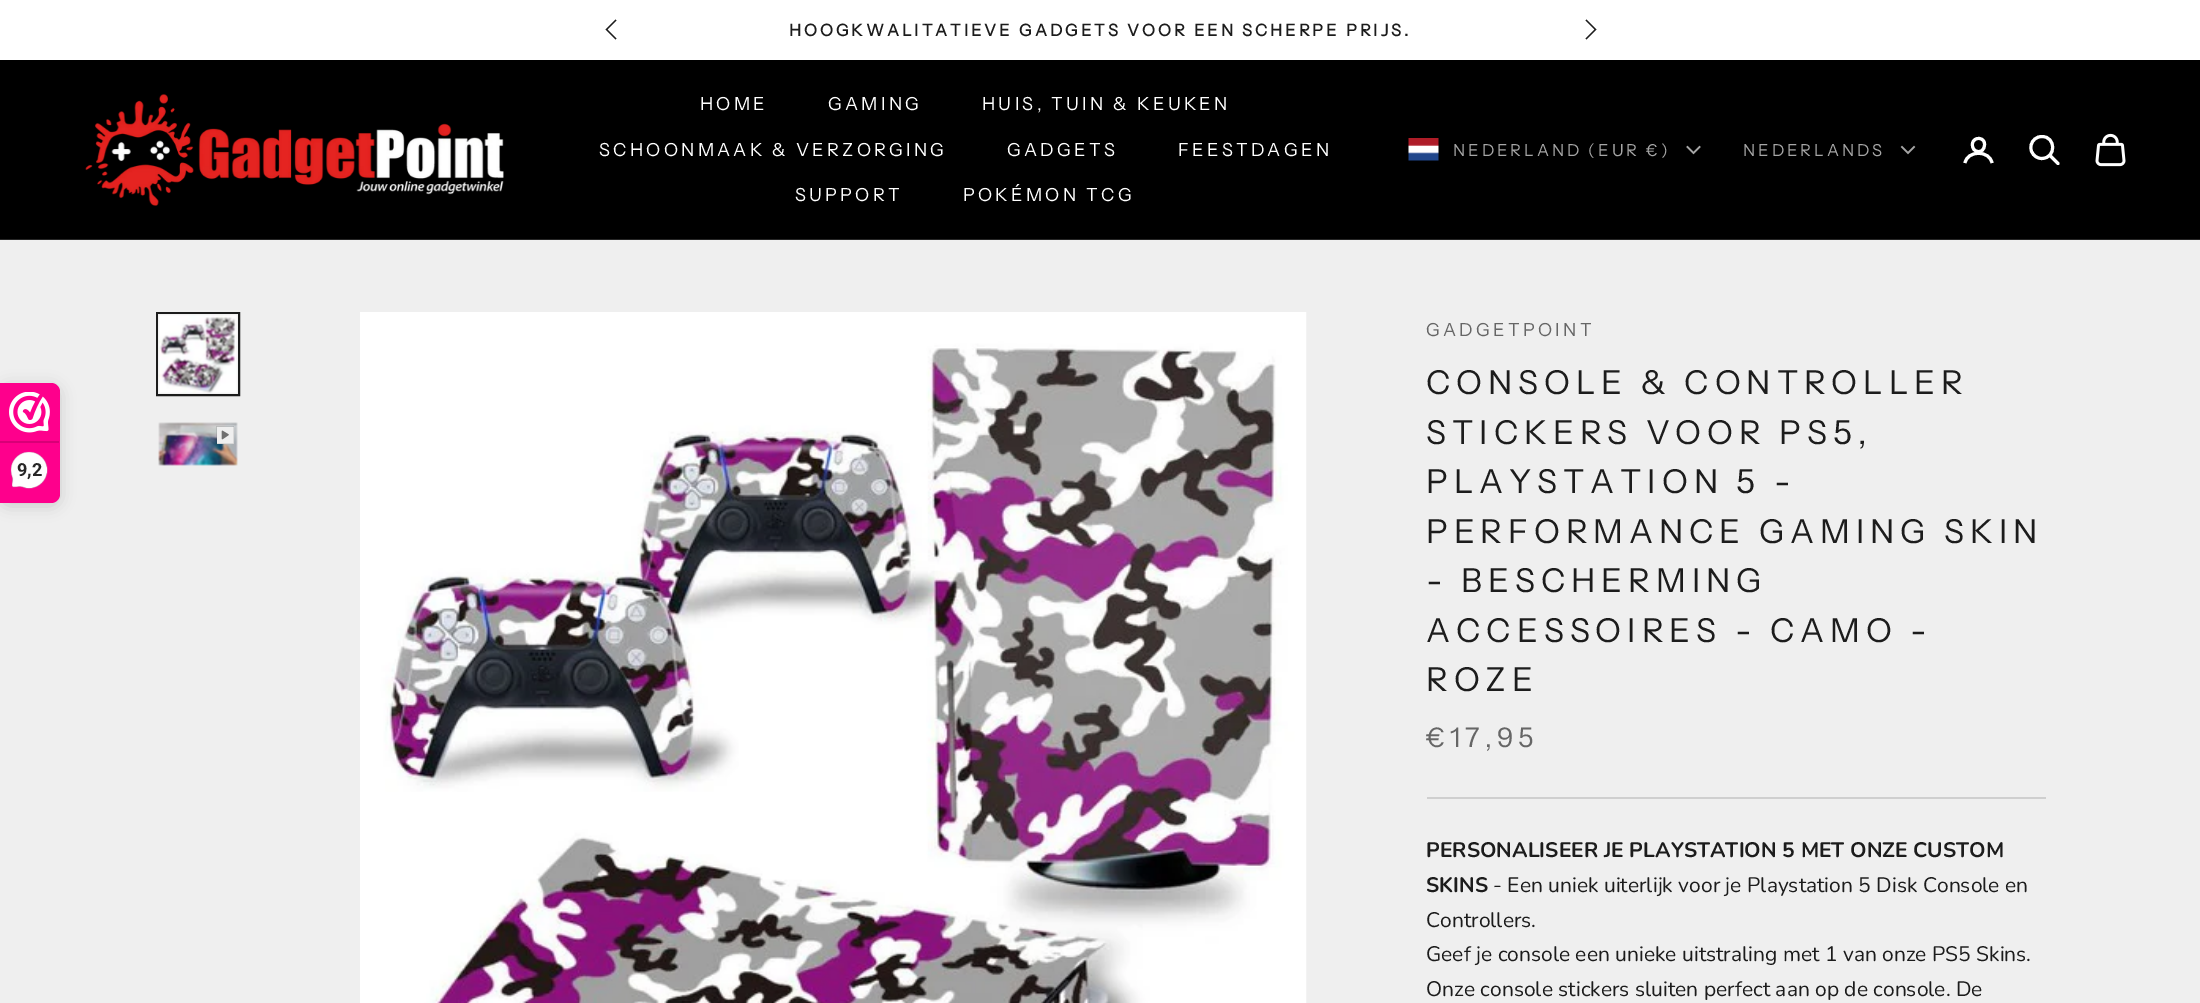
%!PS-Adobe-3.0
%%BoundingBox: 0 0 2200 1003
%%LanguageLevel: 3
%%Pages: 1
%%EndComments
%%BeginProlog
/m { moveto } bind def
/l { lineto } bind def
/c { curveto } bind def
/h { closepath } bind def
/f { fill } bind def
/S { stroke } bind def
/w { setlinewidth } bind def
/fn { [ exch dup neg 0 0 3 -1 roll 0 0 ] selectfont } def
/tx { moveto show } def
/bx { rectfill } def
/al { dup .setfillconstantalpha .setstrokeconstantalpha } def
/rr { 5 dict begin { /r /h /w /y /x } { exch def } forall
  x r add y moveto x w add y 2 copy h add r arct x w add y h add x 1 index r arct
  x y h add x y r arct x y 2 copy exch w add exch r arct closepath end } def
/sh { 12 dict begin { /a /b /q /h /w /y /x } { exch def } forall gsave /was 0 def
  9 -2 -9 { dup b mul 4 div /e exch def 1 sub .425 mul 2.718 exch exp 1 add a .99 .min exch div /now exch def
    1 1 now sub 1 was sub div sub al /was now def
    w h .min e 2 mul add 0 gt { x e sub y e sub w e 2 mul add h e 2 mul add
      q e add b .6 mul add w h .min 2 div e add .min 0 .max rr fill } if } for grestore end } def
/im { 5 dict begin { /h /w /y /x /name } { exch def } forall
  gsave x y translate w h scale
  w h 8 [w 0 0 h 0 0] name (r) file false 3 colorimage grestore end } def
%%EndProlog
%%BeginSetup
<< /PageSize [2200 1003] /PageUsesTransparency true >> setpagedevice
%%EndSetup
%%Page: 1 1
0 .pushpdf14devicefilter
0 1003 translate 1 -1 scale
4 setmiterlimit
0.937 setgray
0 0 2200 1003 bx
1 setgray
0 0 2200 60 bx
0.11 setgray
1.1 w
2 setlinecap
615.5 20.5 m 606.5 29.5 l 615.5 38.5 l S
/InstrumentSans-Bold 16.5 fn
789 36 m 2.95 0 (HOOGKWALITATIEVE GADGETS VOOR EEN SCHERPE PRIJS.) ashow
1586.5 38.5 m 1595.5 29.5 l 1586.5 20.5 l S
0 setgray
0 60 2200 179 bx
0.149 setgray
0 239 2200 1 bx
(image0.raw) 85 94 419 112 im
/InstrumentSans-Regular 18 fn
1 setgray
700 110 m 3.25 0 (HOME) ashow
828 110 m 3.25 0 (GAMING) ashow
982 110 m 3.25 0 (HUIS, TUIN & KEUKEN) ashow
599 156 m 3.25 0 (SCHOONMAAK & VERZORGING) ashow
1007 156 m 3.25 0 (GADGETS) ashow
1178 156 m 3.25 0 (FEESTDAGEN) ashow
795 201 m 3.25 0 (SUPPORT) ashow
963 201 m 3.25 0 (POKÉMON TCG) ashow
(image1.raw) 1408 138 31 23 im
/InstrumentSans-Regular 16.5 fn
0.651 setgray
1453 156 m 2.95 0 (NEDERLAND \(EUR €\)) ashow
1.5 w
1687.5 147 m 1693.5 153 l 1699.5 147 l S
1743 156 m 2.95 0 (NEDERLANDS) ashow
1902 147 m 1908 153 l 1914 147 l S
1 setgray
3 w
1 setlinecap
1 setlinejoin
1984.5 145 m 1984 155 1971 153 1972.5 143.5 c 1973.5 136 1985.5 137 1984.5 145 c h S
0 setlinecap
0 setlinejoin
1965 163 m 1967.5 150 1989.5 150 1992 163 c S
2042 136.5 m 2030.5 136.5 2026.5 151.5 2036.5 157 c 2038 158 2040 158.5 2042 158.5 c 2056.5 158 2056 136.5 2042 136.5 c h S
1 setlinecap
2050.5 156 m 2058 163.5 l S
(image2.raw) 2095 133 31 34 im
0 setgray
0 386 60 120 9 7.5 0.15 sh
0.996 0 0.549 setrgbcolor
0 383 m 51 383 l 56 383 60 387 60 392 c 60 494 l 60 499 56 503 51 503 c 0 503 l h f
(image3.raw) 9 392 41 41 im
0.847 0 0.467 setrgbcolor
0 441 59 2 bx
(image4.raw) 10 451 38 38 im
/Roboto-Bold 18 fn
0.153 0.149 0.149 setrgbcolor
(9,2) 17 476 tx
0.11 setgray
2 w
0 setlinecap
157 313 82 82 rectstroke
(image5.raw) 158 314 80 80 im
(image6.raw) 158 422 80 44 im
(image7.raw) 216 426 18 18 im
(image8.raw) 360 312 947 691 im
/InstrumentSans-Regular 18 fn
0.4 setgray
1426 336 m 3.25 0 (GADGETPOINT) ashow
/InstrumentSans-Regular 33 fn
0.11 setgray
1426 394 m 5.9 0 (CONSOLE & CONTROLLER) ashow
1426 444 m 5.9 0 (STICKERS VOOR PS5,) ashow
1426 493 m 5.9 0 (PLAYSTATION 5 -) ashow
1426 543 m 5.9 0 (PERFORMANCE GAMING SKIN) ashow
1426 592 m 5.9 0 (- BESCHERMING) ashow
1426 642 m 5.9 0 (ACCESSOIRES - CAMO -) ashow
1426 691 m 5.9 0 (ROZE) ashow
/InstrumentSans-Regular 27 fn
0.4 setgray
1426 747 m 5 0 (€17,95) ashow
0.812 setgray
1427 797 619 2 bx
/Nunito-Bold 21 fn
0.11 setgray
(PERSONALISEER JE PLAYSTATION 5 MET ONZE CUSTOM) 1426 857 tx
(SKINS) 1426 892 tx
/Nunito-Regular 21 fn
(- Een uniek uiterlijk voor je Playstation 5 Disk Console en) 1493 892 tx
(Controllers.) 1426 927 tx
(Geef je console een unieke uitstraling met 1 van onze PS5 Skins.) 1426 961 tx
(Onze console stickers sluiten perfect aan op de console. De) 1426 996 tx
.poppdf14devicefilter showpage
%%EOF
